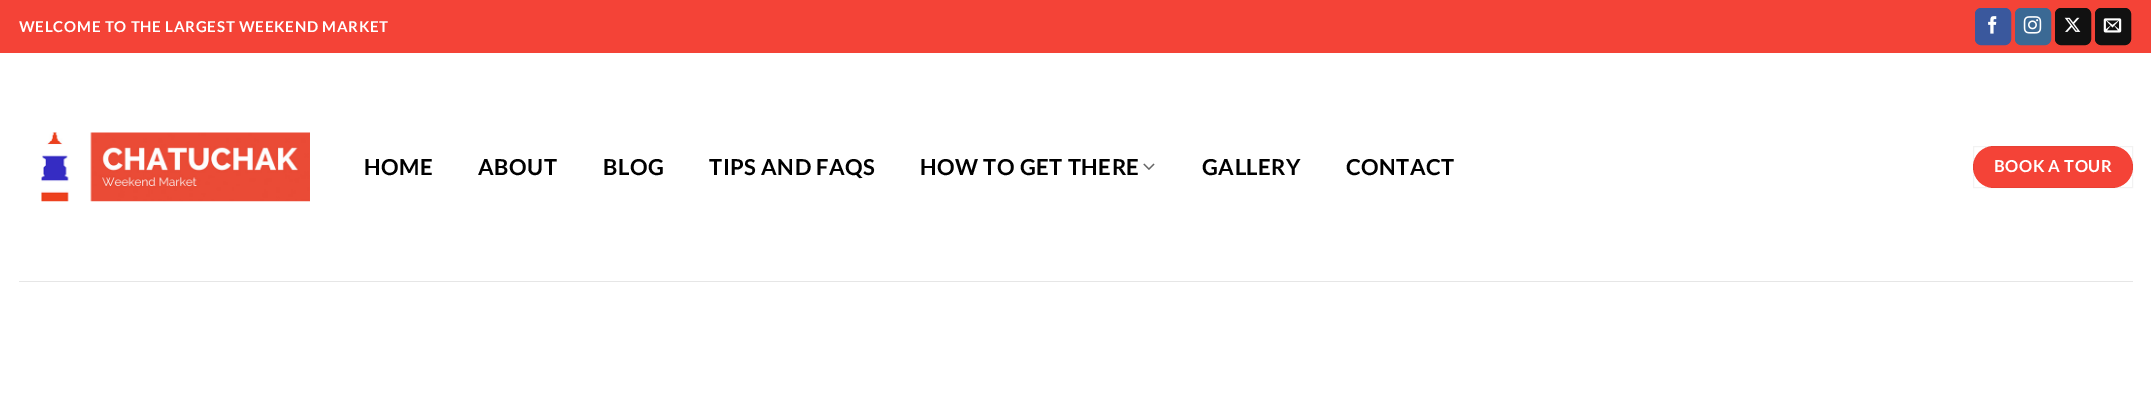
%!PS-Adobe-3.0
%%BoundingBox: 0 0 2151 397
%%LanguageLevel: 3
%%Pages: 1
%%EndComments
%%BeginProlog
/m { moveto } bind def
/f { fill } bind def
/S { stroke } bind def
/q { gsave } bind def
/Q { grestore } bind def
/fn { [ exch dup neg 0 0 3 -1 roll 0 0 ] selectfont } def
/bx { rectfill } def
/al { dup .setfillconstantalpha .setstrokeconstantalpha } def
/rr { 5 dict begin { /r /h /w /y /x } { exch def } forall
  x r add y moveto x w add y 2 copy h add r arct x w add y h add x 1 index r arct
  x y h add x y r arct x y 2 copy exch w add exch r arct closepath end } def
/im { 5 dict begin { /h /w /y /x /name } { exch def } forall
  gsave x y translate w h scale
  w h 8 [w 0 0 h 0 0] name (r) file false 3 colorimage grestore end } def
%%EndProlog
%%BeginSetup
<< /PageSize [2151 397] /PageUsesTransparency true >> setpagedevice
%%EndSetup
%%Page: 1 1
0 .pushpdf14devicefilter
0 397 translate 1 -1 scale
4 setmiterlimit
1 setgray
0 0 2151 397 bx
0.957 0.263 0.216 setrgbcolor
0 0 2151 53 bx
/Lato-Bold 15 fn
1 setgray
19 32 m 0.75 0 (WELCOME TO THE LARGEST WEEKEND MARKET) ashow
0.227 0.345 0.616 setrgbcolor
1975.5 8.5 35 36 5.5 rr q f Q
S
(image0.raw) 1988 16 9 18 im
0.231 0.412 0.58 setrgbcolor
2015.5 8.5 35 36 5.5 rr q f Q
S
(image1.raw) 2023 16 19 18 im
0.067 setgray
2055.5 8.5 35 36 5.5 rr q f Q
S
(image2.raw) 2064 17 17 15 im
2095.5 8.5 35 36 5.5 rr q f Q
S
(image3.raw) 2103 18 19 15 im
(image4.raw) 41 132 269 70 im
/Lato-Bold 22 fn
0 setgray
364 175 m 0.5 0 (HOME) ashow
478 175 m 0.5 0 (ABOUT) ashow
603 175 m 0.5 0 (BLOG) ashow
709 175 m 0.5 0 (TIPS AND FAQS) ashow
920 175 m 0.5 0 (HOW TO GET THERE) ashow
(image5.raw) 1143 163 12 7 im
1202 175 m 0.5 0 (GALLERY) ashow
1346 175 m 0.5 0 (CONTACT) ashow
0.957 0.263 0.216 setrgbcolor
1973 146 160 42 21 rr f
0.05 al
0 setgray
1973.5 146.5 159 41 rectstroke
/Lato-Bold 16.5 fn
1 al
1 setgray
1994 172 m 0.5 0 (BOOK A TOUR) ashow
0.902 setgray
19 281 2114 1 bx
.poppdf14devicefilter showpage
%%EOF
